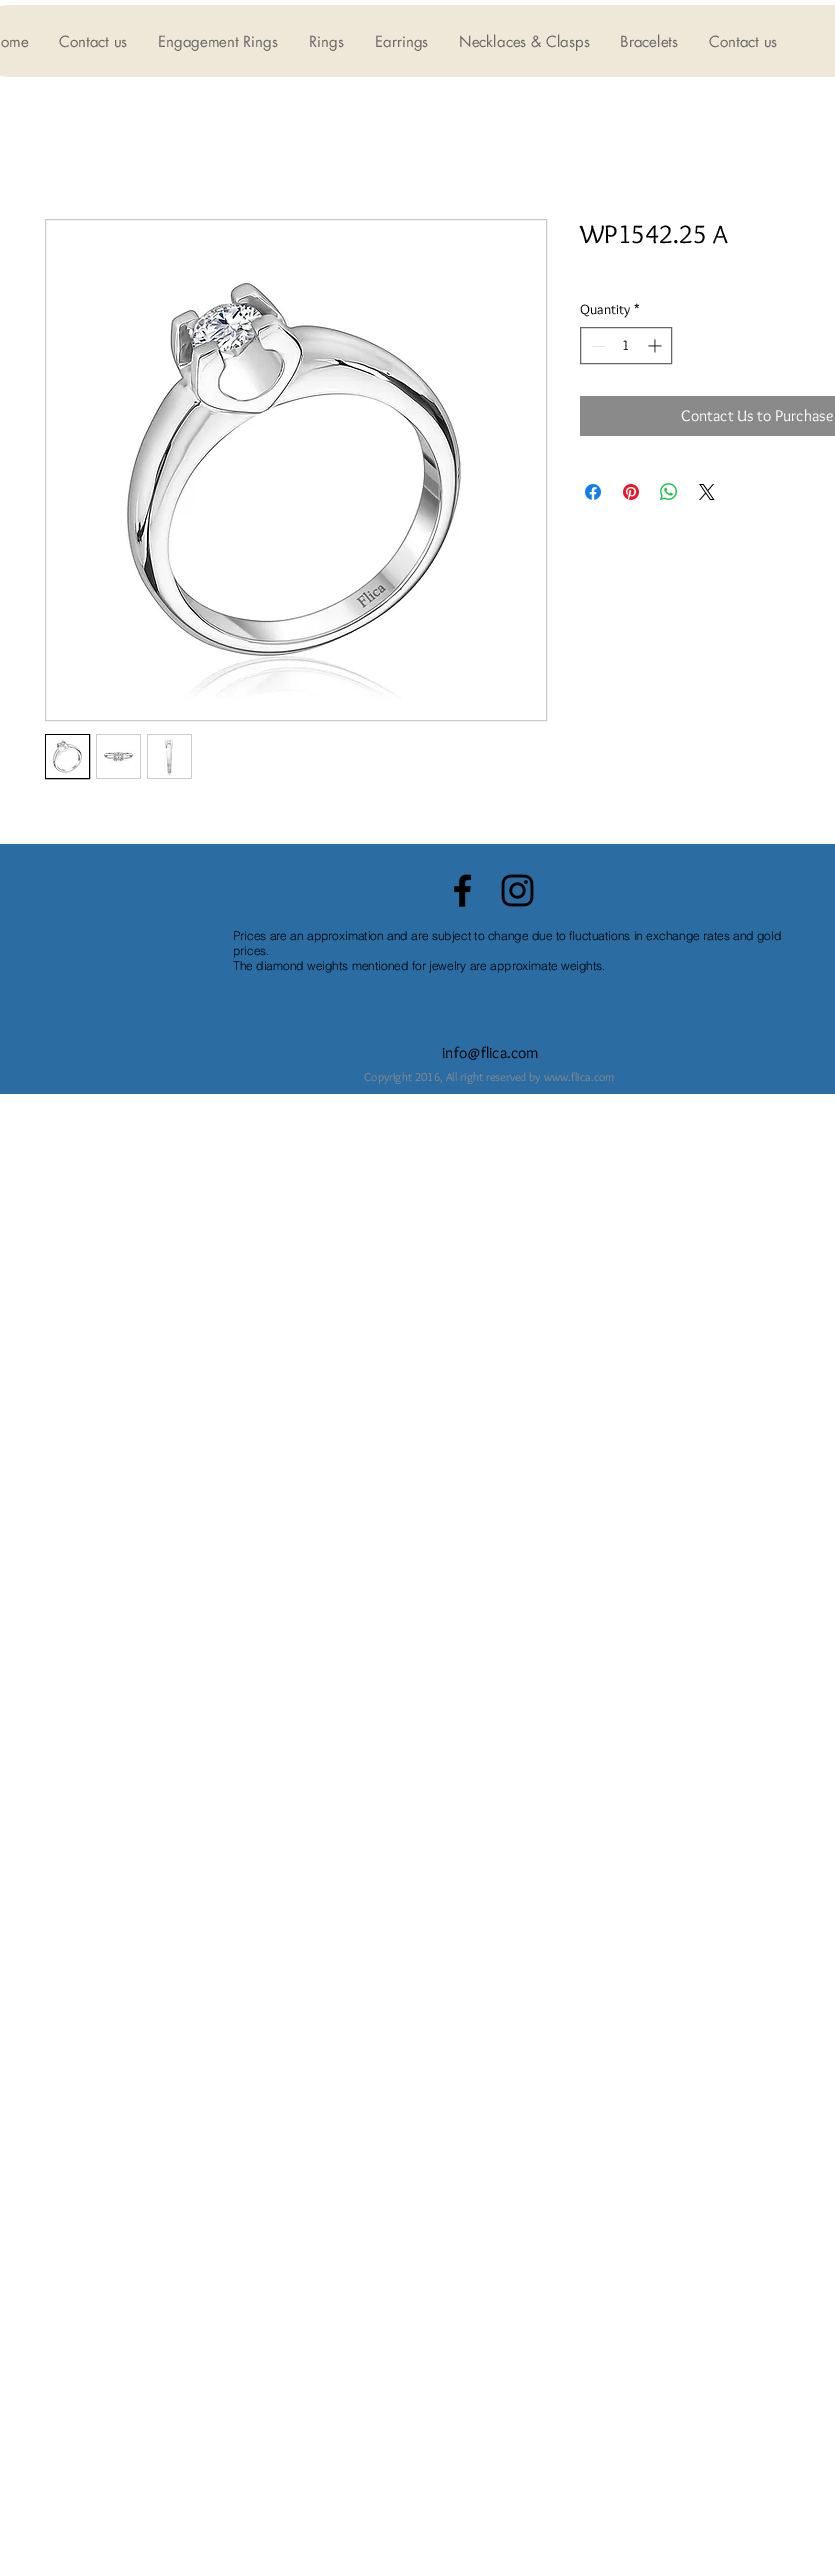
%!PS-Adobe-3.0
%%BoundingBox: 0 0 835 2556
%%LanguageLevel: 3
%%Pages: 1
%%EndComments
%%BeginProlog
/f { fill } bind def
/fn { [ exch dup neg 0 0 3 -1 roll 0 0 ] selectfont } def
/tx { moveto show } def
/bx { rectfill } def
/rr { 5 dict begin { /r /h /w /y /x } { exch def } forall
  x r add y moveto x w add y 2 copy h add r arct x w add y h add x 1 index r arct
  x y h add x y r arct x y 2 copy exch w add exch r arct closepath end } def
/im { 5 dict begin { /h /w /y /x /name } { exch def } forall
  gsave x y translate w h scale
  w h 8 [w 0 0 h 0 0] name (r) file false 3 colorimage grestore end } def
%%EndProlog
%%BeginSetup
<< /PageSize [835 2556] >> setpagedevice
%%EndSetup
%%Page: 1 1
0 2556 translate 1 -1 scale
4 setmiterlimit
1 setgray
0 0 835 2556 bx
0.933 0.91 0.847 setrgbcolor
-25 5 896 72 36 rr f
/futura-Regular 15 fn
0.412 setgray
(ome) 1 47 tx
(Contact us) 59 47 tx
(Engagement Rings) 158 47 tx
(Rings) 309 47 tx
(Earrings) 375 47 tx
(Necklaces & Clasps) 459 47 tx
(Bracelets) 620 47 tx
(Contact us) 709 47 tx
0.8 setgray
45.5 219.5 501 501 rectstroke
(image0.raw) 126 281 336 418 im
0 setgray
45.5 734.5 44 44 rectstroke
(image1.raw) 46 735 43 43 im
0.8 setgray
96 734 45 45 bx
(image2.raw) 97 735 43 43 im
147 734 45 45 bx
(image3.raw) 148 735 43 43 im
/Overlock-Regular 26 fn
0 setgray
(WP1542.25 A) 580 243 tx
/Overlock-Regular 14 fn
(Quantity) 580 314 tx
(*) 634 314 tx
0.4 setgray
580.5 327.5 91 36 rectstroke
0.89 setgray
592 346 13 1 bx
0 setgray
(1) 622 350 tx
(image4.raw) 648 339 14 14 im
0.545 0.541 0.541 setrgbcolor
580 396 255 40 bx
/Overlock-Regular 16 fn
1 setgray
(Contact Us to Purchase) 681 421 tx
(image5.raw) 585 484 16 16 im
(image6.raw) 623 484 16 16 im
(image7.raw) 660 483 17 17 im
(image8.raw) 699 484 16 16 im
0.169 0.424 0.639 setrgbcolor
0 844 835 250 bx
(image9.raw) 454 874 18 33 im
(image10.raw) 501 874 33 33 im
/helvetica-Light 12 fn
0 setgray
(Prices are an approximation and are subject to change due to fluctuations in exchange rates and gold) 233 940 tx
(prices.) 233 955 tx
(The diamond weights mentioned for jewelry are approximate weights.) 233 970 tx
/Overlock-Regular 16 fn
(info@flica.com) 442 1058 tx
/Overlock-Regular 12 fn
0.545 0.541 0.541 setrgbcolor
(Copyright 2016, All right reserved by www.flica.com) 364 1081 tx
showpage
%%EOF
